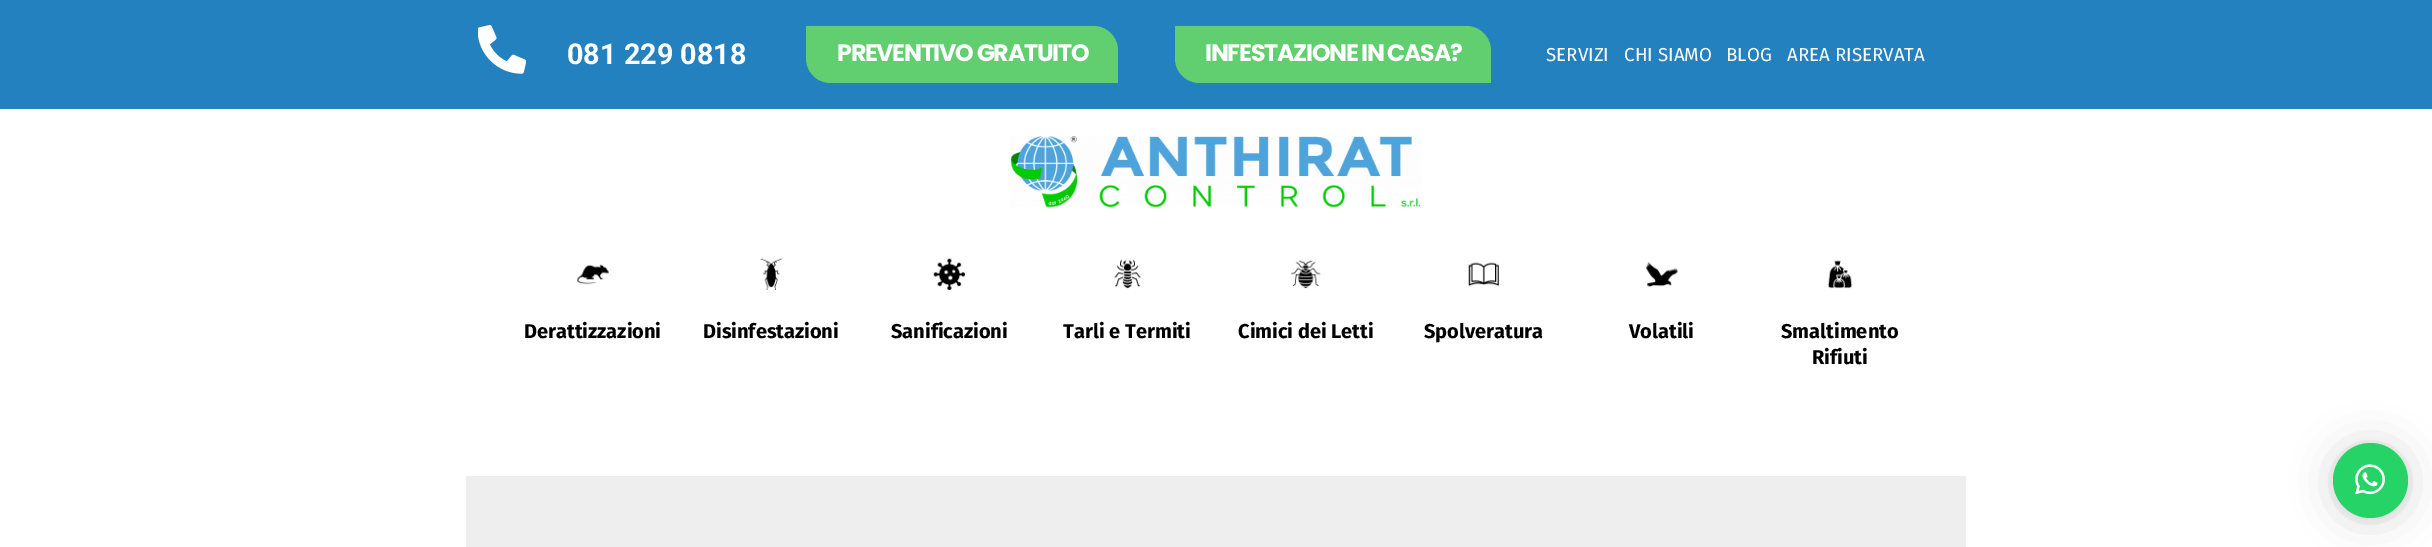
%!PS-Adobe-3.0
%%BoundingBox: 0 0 2432 547
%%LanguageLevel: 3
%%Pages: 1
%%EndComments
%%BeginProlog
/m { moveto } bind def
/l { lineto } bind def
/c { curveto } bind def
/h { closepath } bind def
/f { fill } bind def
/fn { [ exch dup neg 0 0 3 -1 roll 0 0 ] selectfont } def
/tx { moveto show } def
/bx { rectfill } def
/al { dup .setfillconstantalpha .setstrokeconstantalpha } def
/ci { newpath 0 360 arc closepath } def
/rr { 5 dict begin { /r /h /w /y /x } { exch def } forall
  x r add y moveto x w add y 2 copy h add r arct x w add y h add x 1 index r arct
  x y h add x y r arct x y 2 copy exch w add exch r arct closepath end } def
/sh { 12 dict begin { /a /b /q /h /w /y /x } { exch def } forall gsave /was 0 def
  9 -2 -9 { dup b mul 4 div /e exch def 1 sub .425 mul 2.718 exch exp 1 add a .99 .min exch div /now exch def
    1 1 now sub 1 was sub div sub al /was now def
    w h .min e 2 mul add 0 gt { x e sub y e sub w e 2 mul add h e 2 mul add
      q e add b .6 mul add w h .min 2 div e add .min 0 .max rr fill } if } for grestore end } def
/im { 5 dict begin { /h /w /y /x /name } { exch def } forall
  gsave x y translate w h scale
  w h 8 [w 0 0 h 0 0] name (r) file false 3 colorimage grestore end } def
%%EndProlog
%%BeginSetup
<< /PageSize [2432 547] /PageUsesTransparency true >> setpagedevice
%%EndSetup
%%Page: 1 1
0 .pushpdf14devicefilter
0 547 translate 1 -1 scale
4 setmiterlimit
1 setgray
0 0 2432 547 bx
0.137 0.506 0.749 setrgbcolor
0 0 2432 109 bx
(image0.raw) 478 25 48 49 im
/Roboto-Bold 28.75 fn
1 setgray
(081 229 0818) 567 64 tx
0.38 0.808 0.439 setrgbcolor
806 26 m 1093 26 l 1107 26 1118 37 1118 51 c 1118 83 l 831 83 l 817 83 806 72 806 58 c h f
/Poppins-Bold 23.75 fn
1 setgray
837 61 m -1.25 0 (PREVENTIVO GRATUITO) ashow
0.38 0.808 0.439 setrgbcolor
1175 26 m 1466 26 l 1480 26 1491 37 1491 51 c 1491 83 l 1200 83 l 1186 83 1175 72 1175 58 c h f
1 setgray
1205 61 m -1.25 0 (INFESTAZIONE IN CASA?) ashow
/FiraSans-Regular 18.75 fn
(SERVIZI) 1546 61 tx
(CHI SIAMO) 1624 61 tx
(BLOG) 1726 61 tx
(AREA RISERVATA) 1787 61 tx
(image1.raw) 1010 136 411 72 im
(image2.raw) 577 264 32 21 im
/FiraSans-Bold 20 fn
0 setgray
(Derattizzazioni) 524 338 tx
(image3.raw) 760 258 23 32 im
(Disinfestazioni) 703 338 tx
(image4.raw) 933 258 32 32 im
(Sanificazioni) 891 338 tx
(image5.raw) 1114 259 27 30 im
(Tarli e Termiti) 1063 338 tx
(image6.raw) 1291 260 30 29 im
(Cimici dei Letti) 1238 338 tx
(image7.raw) 1468 262 31 25 im
(Spolveratura) 1424 338 tx
(image8.raw) 1646 262 32 25 im
(Volatili) 1629 338 tx
(image9.raw) 1828 260 25 29 im
(Smaltimento) 1781 338 tx
(Rifiuti) 1812 364 tx
0.933 setgray
466 476 1500 71 bx
0 setgray
2333 445 75 75 37.5 20 0.16 sh
2333 444 75 75 37.5 4 0.06 sh
0.145 0.827 0.4 setrgbcolor
2370.5 480.5 37.5 ci f
(image10.raw) 2355 464 30 31 im
.poppdf14devicefilter showpage
%%EOF
